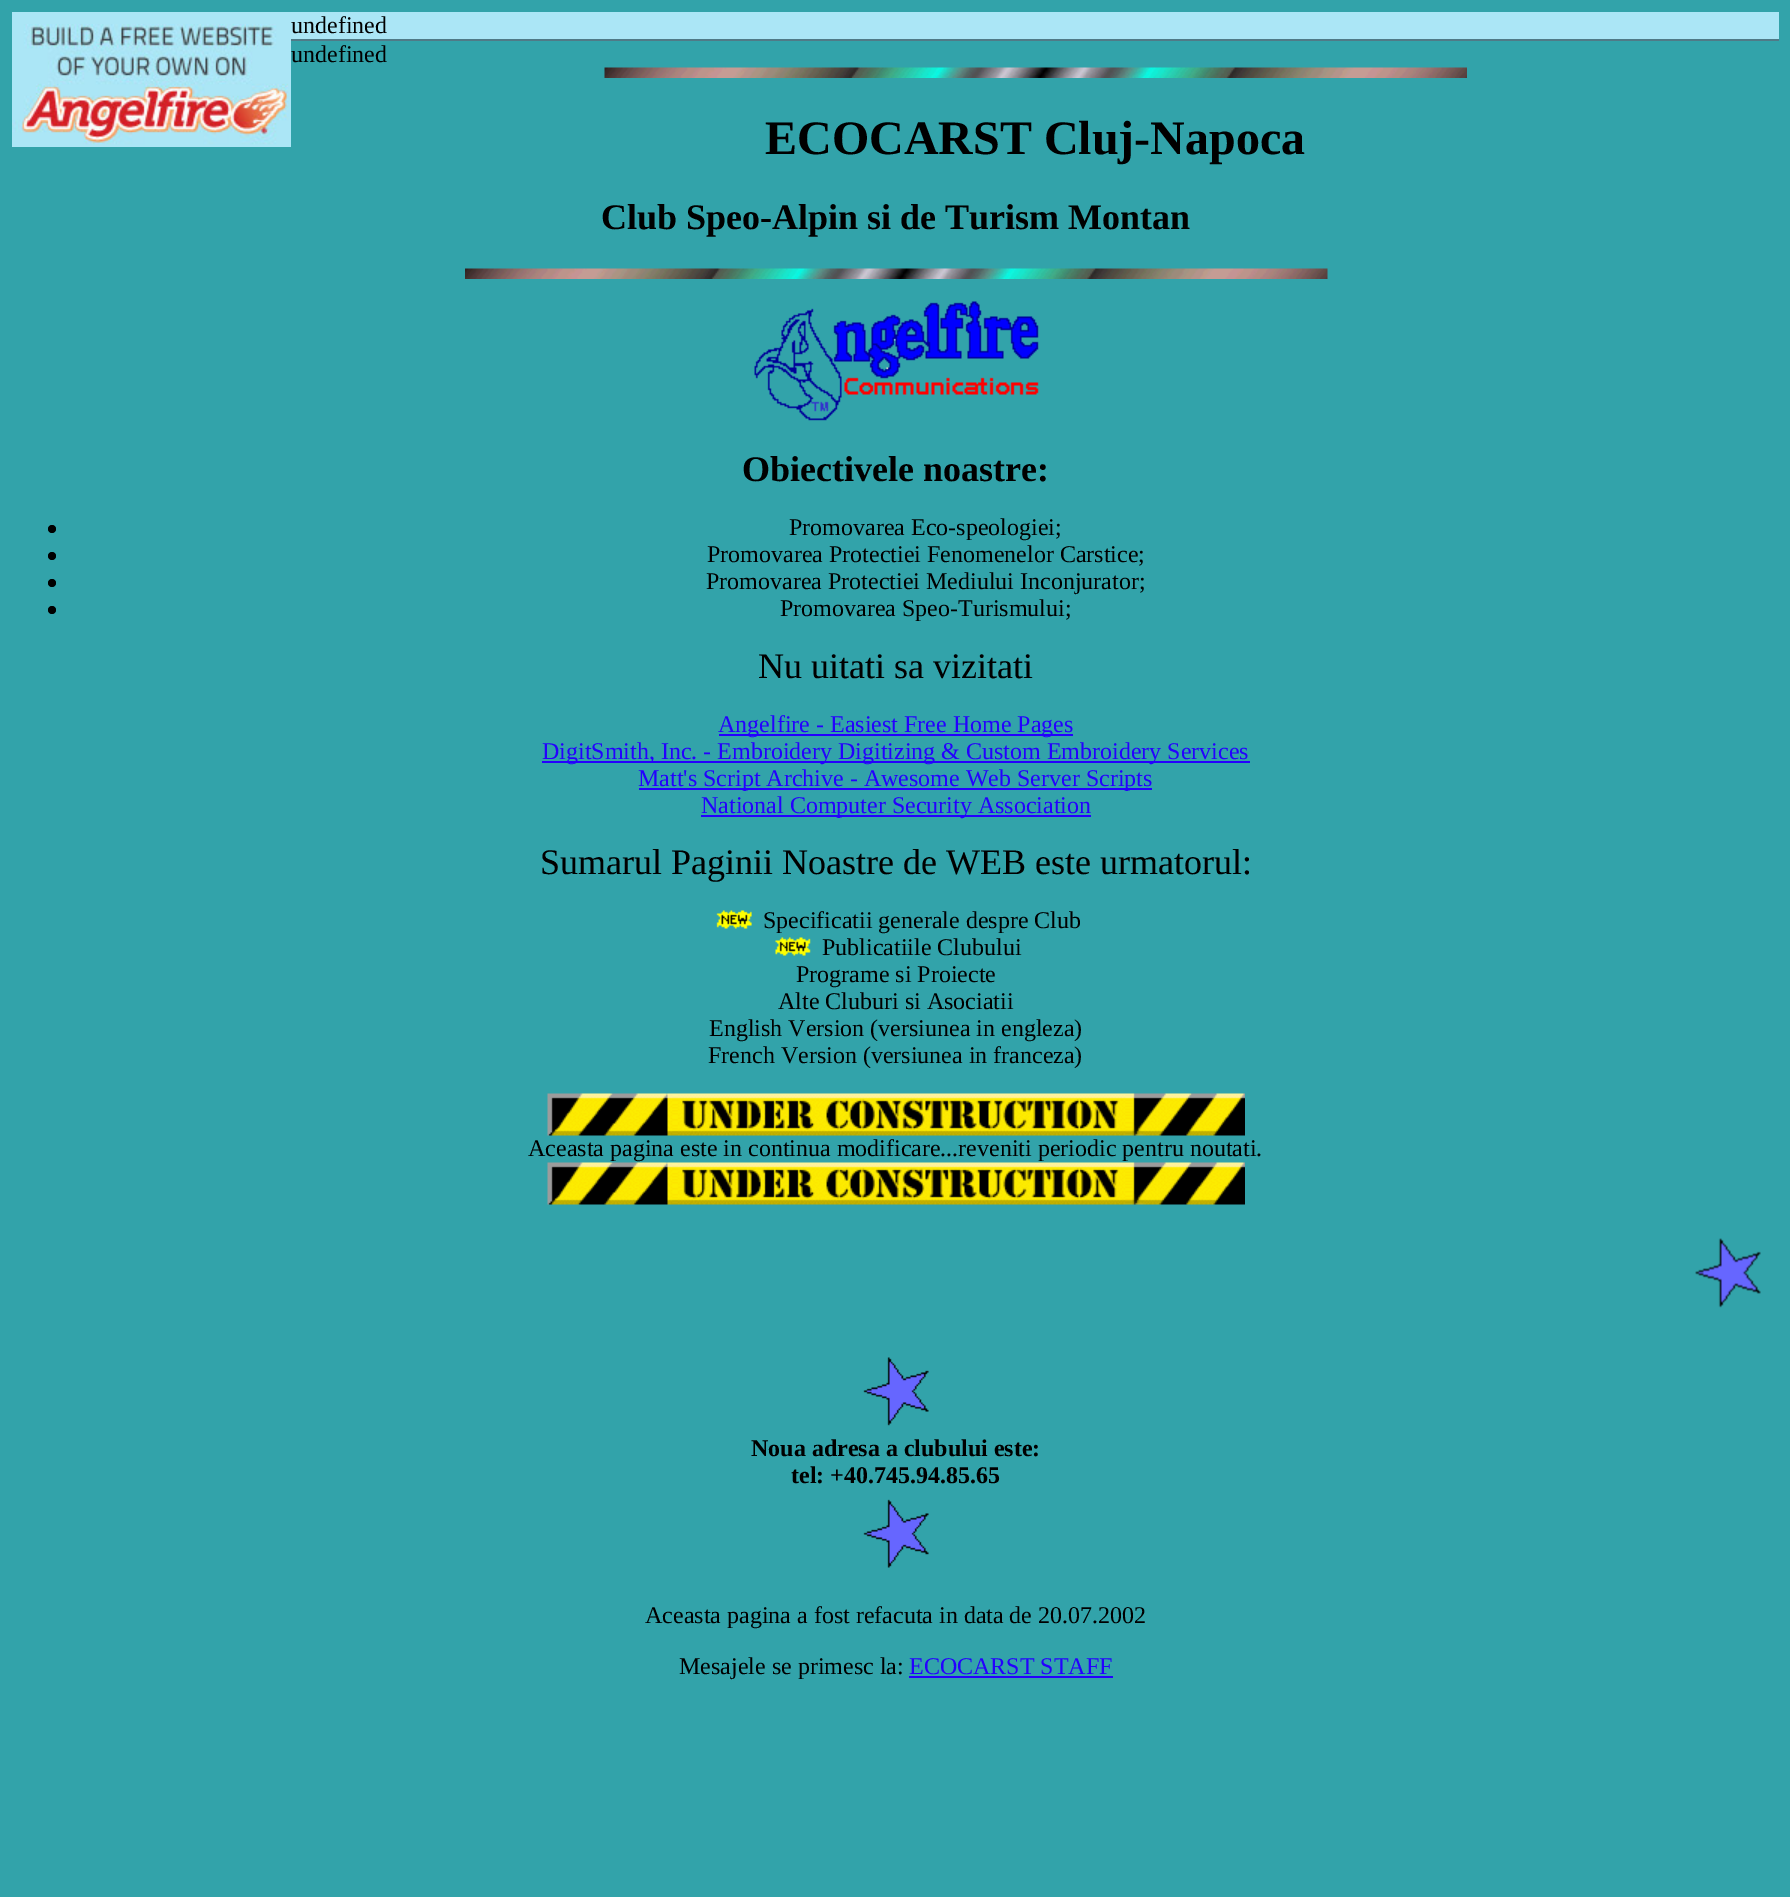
%!PS-Adobe-3.0
%%BoundingBox: 0 0 1790 1897
%%LanguageLevel: 3
%%Pages: 1
%%EndComments
%%BeginProlog
/f { fill } bind def
/fn { [ exch dup neg 0 0 3 -1 roll 0 0 ] selectfont } def
/tx { moveto show } def
/bx { rectfill } def
/ci { newpath 0 360 arc closepath } def
/im { 5 dict begin { /h /w /y /x /name } { exch def } forall
  gsave x y translate w h scale
  w h 8 [w 0 0 h 0 0] name (r) file false 3 colorimage grestore end } def
%%EndProlog
%%BeginSetup
<< /PageSize [1790 1897] >> setpagedevice
%%EndSetup
%%Page: 1 1
0 1897 translate 1 -1 scale
4 setmiterlimit
0.196 0.639 0.667 setrgbcolor
0 0 1790 1897 bx
0.671 0.902 0.965 setrgbcolor
12 12 1767 27 bx
0.314 0.478 0.529 setrgbcolor
291 39 1488 2 bx
(image0.raw) 12 24 279 123 im
/LiberationSerif-Regular 24 fn
0 setgray
(undefined) 291 33 tx
(undefined) 291 62 tx
(image1.raw) 604 67 863 11 im
/LiberationSerif-Bold 48 fn
(ECOCARST Cluj-Napoca) 765 154 tx
/LiberationSerif-Bold 36 fn
(Club Speo-Alpin si de Turism Montan) 601 229 tx
(image2.raw) 465 268 863 11 im
(image3.raw) 754 301 285 120 im
(Obiectivele noastre:) 742 481 tx
52 529 4 ci f
/LiberationSerif-Regular 24 fn
(Promovarea Eco-speologiei;) 789 535 tx
52 556 4 ci f
(Promovarea Protectiei Fenomenelor Carstice;) 707 562 tx
52 583 4 ci f
(Promovarea Protectiei Mediului Inconjurator;) 706 589 tx
52 610 4 ci f
(Promovarea Speo-Turismului;) 780 616 tx
/LiberationSerif-Regular 36 fn
(Nu uitati sa vizitati) 758 678 tx
0.141 0 1 setrgbcolor
719 734 354 2 bx
/LiberationSerif-Regular 24 fn
(Angelfire - Easiest Free Home Pages) 718 732 tx
542 761 708 2 bx
(DigitSmith, Inc. - Embroidery Digitizing & Custom Embroidery Services) 542 759 tx
639 788 513 2 bx
(Matt's Script Archive - Awesome Web Server Scripts) 638 786 tx
701 815 390 2 bx
(National Computer Security Association) 701 813 tx
/LiberationSerif-Regular 36 fn
0 setgray
(Sumarul Paginii Noastre de WEB este urmatorul:) 540 874 tx
(image4.raw) 716 910 36 19 im
/LiberationSerif-Regular 24 fn
(Specificatii generale despre Club) 763 928 tx
(image5.raw) 775 937 36 19 im
(Publicatiile Clubului) 822 955 tx
(Programe si Proiecte) 796 982 tx
(Alte Cluburi si Asociatii) 778 1009 tx
(English Version \(versiunea in engleza\)) 709 1036 tx
(French Version \(versiunea in franceza\)) 708 1063 tx
(image6.raw) 547 1093 698 43 im
(Aceasta pagina este in continua modificare...reveniti periodic pentru noutati.) 528 1156 tx
(image6.raw) 547 1162 698 43 im
(image7.raw) 1695 1238 66 70 im
(image8.raw) 863 1357 66 69 im
/LiberationSerif-Bold 24 fn
(Noua adresa a clubului este:) 751 1456 tx
(tel: +40.745.94.85.65) 791 1483 tx
(image9.raw) 863 1499 66 69 im
/LiberationSerif-Regular 24 fn
(Aceasta pagina a fost refacuta in data de 20.07.2002) 645 1623 tx
(Mesajele se primesc la:) 679 1674 tx
0.141 0 1 setrgbcolor
(ECOCARST STAFF) 909 1674 tx
909 1676 204 2 bx
showpage
%%EOF
